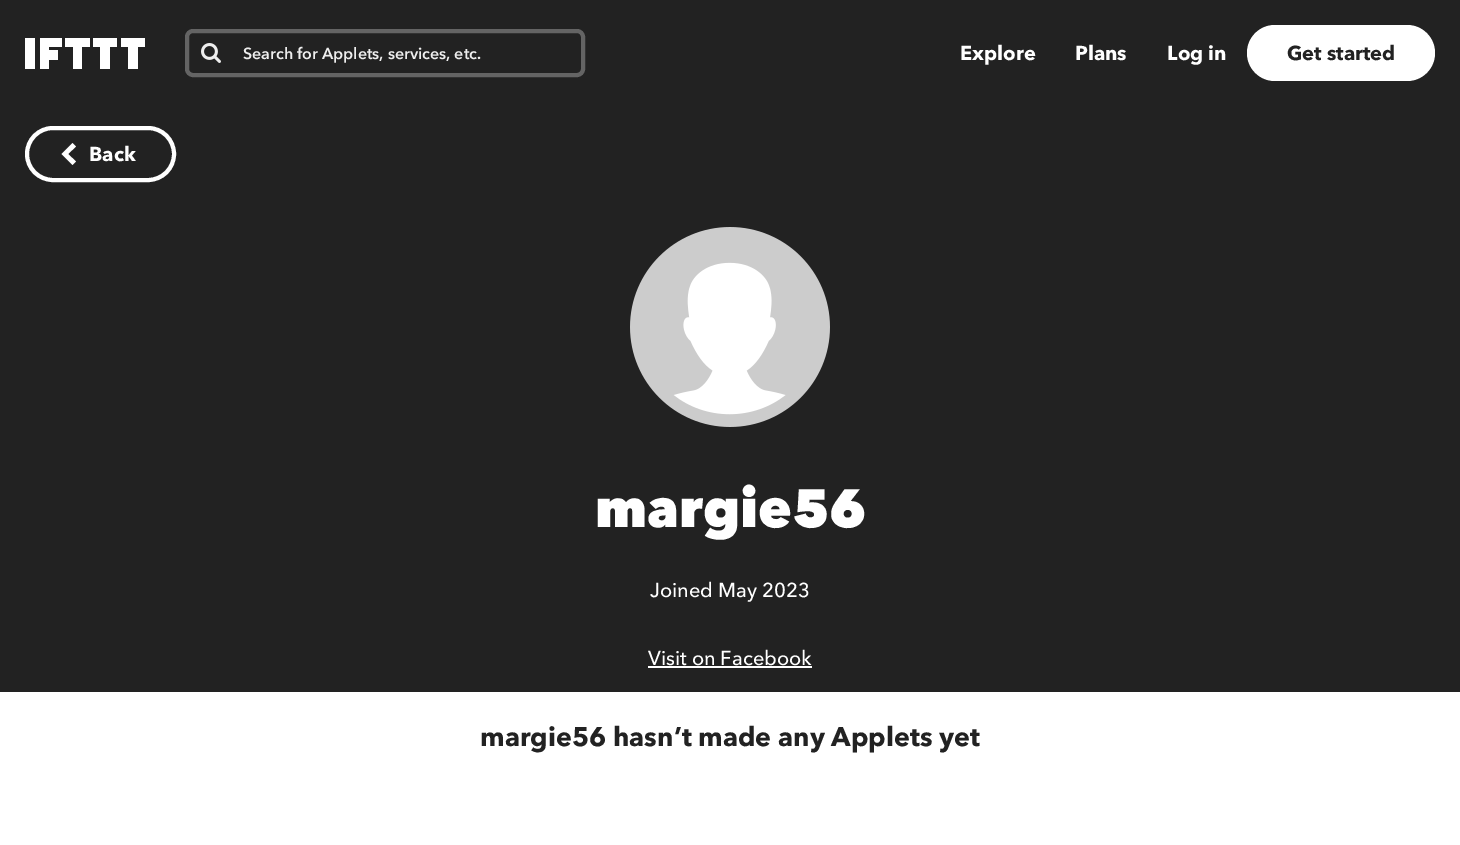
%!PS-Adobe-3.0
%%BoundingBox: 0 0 1460 845
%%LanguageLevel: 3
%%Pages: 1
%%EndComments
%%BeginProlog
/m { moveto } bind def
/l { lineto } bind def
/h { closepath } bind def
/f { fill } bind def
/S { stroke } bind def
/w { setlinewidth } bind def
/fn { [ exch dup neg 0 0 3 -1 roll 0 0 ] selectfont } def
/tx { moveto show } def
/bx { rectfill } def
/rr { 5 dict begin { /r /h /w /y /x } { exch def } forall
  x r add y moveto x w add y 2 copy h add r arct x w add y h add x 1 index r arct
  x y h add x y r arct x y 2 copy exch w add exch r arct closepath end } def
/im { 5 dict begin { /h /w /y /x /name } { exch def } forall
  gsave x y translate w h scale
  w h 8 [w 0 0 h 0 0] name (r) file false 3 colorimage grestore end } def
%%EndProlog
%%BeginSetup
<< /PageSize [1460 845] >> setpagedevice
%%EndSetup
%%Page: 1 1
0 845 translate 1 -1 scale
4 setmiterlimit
0.133 setgray
0 0 1460 845 bx
1 setgray
90 38 m 65 38 l 65 47 l 73 47 l 73 69 l 82 69 l 82 47 l 90 47 l h 117 38 m 93 38 l 93 47 l 100 47 l 100 69 l 110 69 l 110 47 l 117 47 l h 145 38 m 121 38 l 121 47 l 128 47 l 128 69 l 138 69 l 138 47 l 145 47 l h 35 38 m 25 38 l 25 69 l 35 69 l h 62 38 m 40 38 l 40 69 l 49 69 l 49 60 l 58 60 l 58 50 l 49 50 l 49 47 l 62 47 l h f
0.392 setgray
4 w
187 31 396 44 6 rr S
(image0.raw) 201 43 20 20 im
/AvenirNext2-Bold 16 fn
0.933 setgray
(Search for Applets, services, etc.) 243 59 tx
/AvenirNext-Bold 20 fn
1 setgray
(Explore) 960 60 tx
(Plans) 1075 60 tx
(Log in) 1167 60 tx
1247 25 188 56 28 rr f
0.133 setgray
(Get started) 1287 60 tx
1 setgray
27 128 147 52 26 rr S
61.5 154 m 72.5 165 l 76 161.5 l 68 154 l 76 146.5 l 72.5 143 l h eofill
(Back) 89 161 tx
(image1.raw) 630 227 200 200 im
/AvenirNext-Black 53.5 fn
(margie56) 595 527 tx
/AvenirNext-Medium 20 fn
(Joined May 2023) 650 597 tx
(Visit on Facebook) 648 665 tx
648 666 164 2 bx
0 692 1460 153 bx
/AvenirNext-Bold 26.7 fn
0.133 setgray
(margie56 hasn’t made any Applets yet) 480 746 tx
showpage
%%EOF
